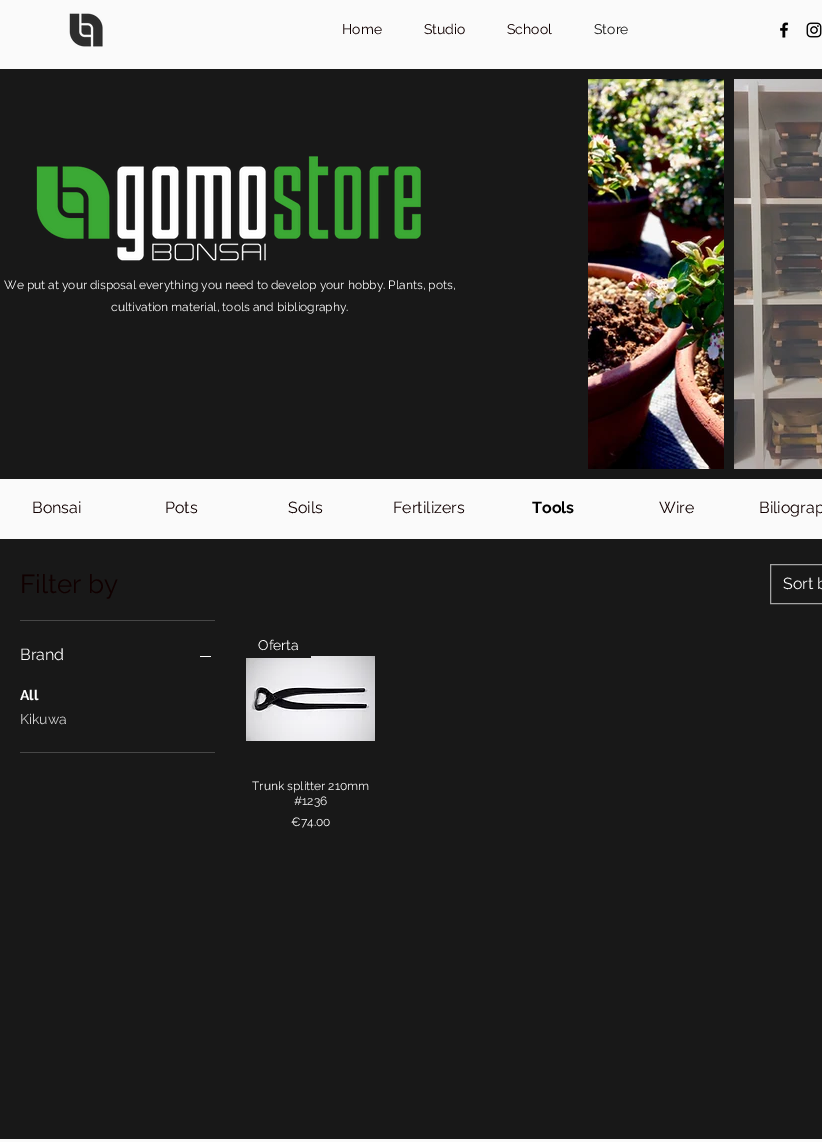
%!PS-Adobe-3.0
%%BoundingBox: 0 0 822 1142
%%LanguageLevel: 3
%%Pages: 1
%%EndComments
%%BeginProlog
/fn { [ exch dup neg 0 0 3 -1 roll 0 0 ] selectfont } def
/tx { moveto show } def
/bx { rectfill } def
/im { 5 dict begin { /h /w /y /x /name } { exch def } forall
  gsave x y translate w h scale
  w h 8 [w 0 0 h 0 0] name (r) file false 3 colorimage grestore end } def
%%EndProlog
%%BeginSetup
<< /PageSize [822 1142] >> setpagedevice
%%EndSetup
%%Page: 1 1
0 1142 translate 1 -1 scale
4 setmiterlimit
0.094 setgray
0 0 822 1142 bx
0.98 setgray
0 0 822 69 bx
(image0.raw) 69 13 34 34 im
/Raleway-Regular 14 fn
0.063 0 0 setrgbcolor
(Home) 342 34 tx
(Studio) 424 34 tx
(School) 507 34 tx
0.094 setgray
(Store) 594 34 tx
(image1.raw) 780 22 9 16 im
(image2.raw) 806 22 16 16 im
(image3.raw) 36 156 385 105 im
/Raleway-Regular 12 fn
1 setgray
(We put at your disposal everything you need to develop your hobby. Plants, pots,) 4 289 tx
(cultivation material, tools and bibliography.) 111 311 tx
(image4.raw) 588 79 136 390 im
(image5.raw) 734 79 88 390 im
0.98 setgray
0 479 822 60 bx
/Raleway-Regular 16 fn
0.063 0 0 setrgbcolor
(Bonsai) 32 513 tx
(Pots) 165 513 tx
(Soils) 288 513 tx
(Fertilizers) 393 513 tx
/Raleway-Bold 16 fn
0 setgray
(Tools) 532 513 tx
/Raleway-Regular 16 fn
0.063 0 0 setrgbcolor
(Wire) 659 513 tx
(Biliograp) 759 513 tx
0.275 setgray
20 620 195 1 bx
/Raleway-Regular 26 fn
0.063 0 0 setrgbcolor
(Filter by) 20 593 tx
0.275 setgray
20 752 195 1 bx
/Raleway-Regular 16 fn
1 setgray
(Brand) 20 660 tx
200 656 11 1 bx
/Raleway-Bold 14 fn
(All) 20 700 tx
/Raleway-Regular 14 fn
0.82 setgray
(Kikuwa) 20 724 tx
0.639 setgray
770.5 564.5 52 39 rectstroke
/Raleway-Regular 16 fn
1 setgray
(Sort b) 783 589 tx
(image6.raw) 246 656 129 85 im
0.094 setgray
246 656 65 2 bx
/Raleway-Regular 14 fn
1 setgray
(Oferta) 258 650 tx
/Raleway-Regular 12 fn
(Trunk splitter 210mm) 252 790 tx
(#1236) 294 805 tx
(€74.00) 291 826 tx
0.98 setgray
0 1139 822 3 bx
showpage
%%EOF
